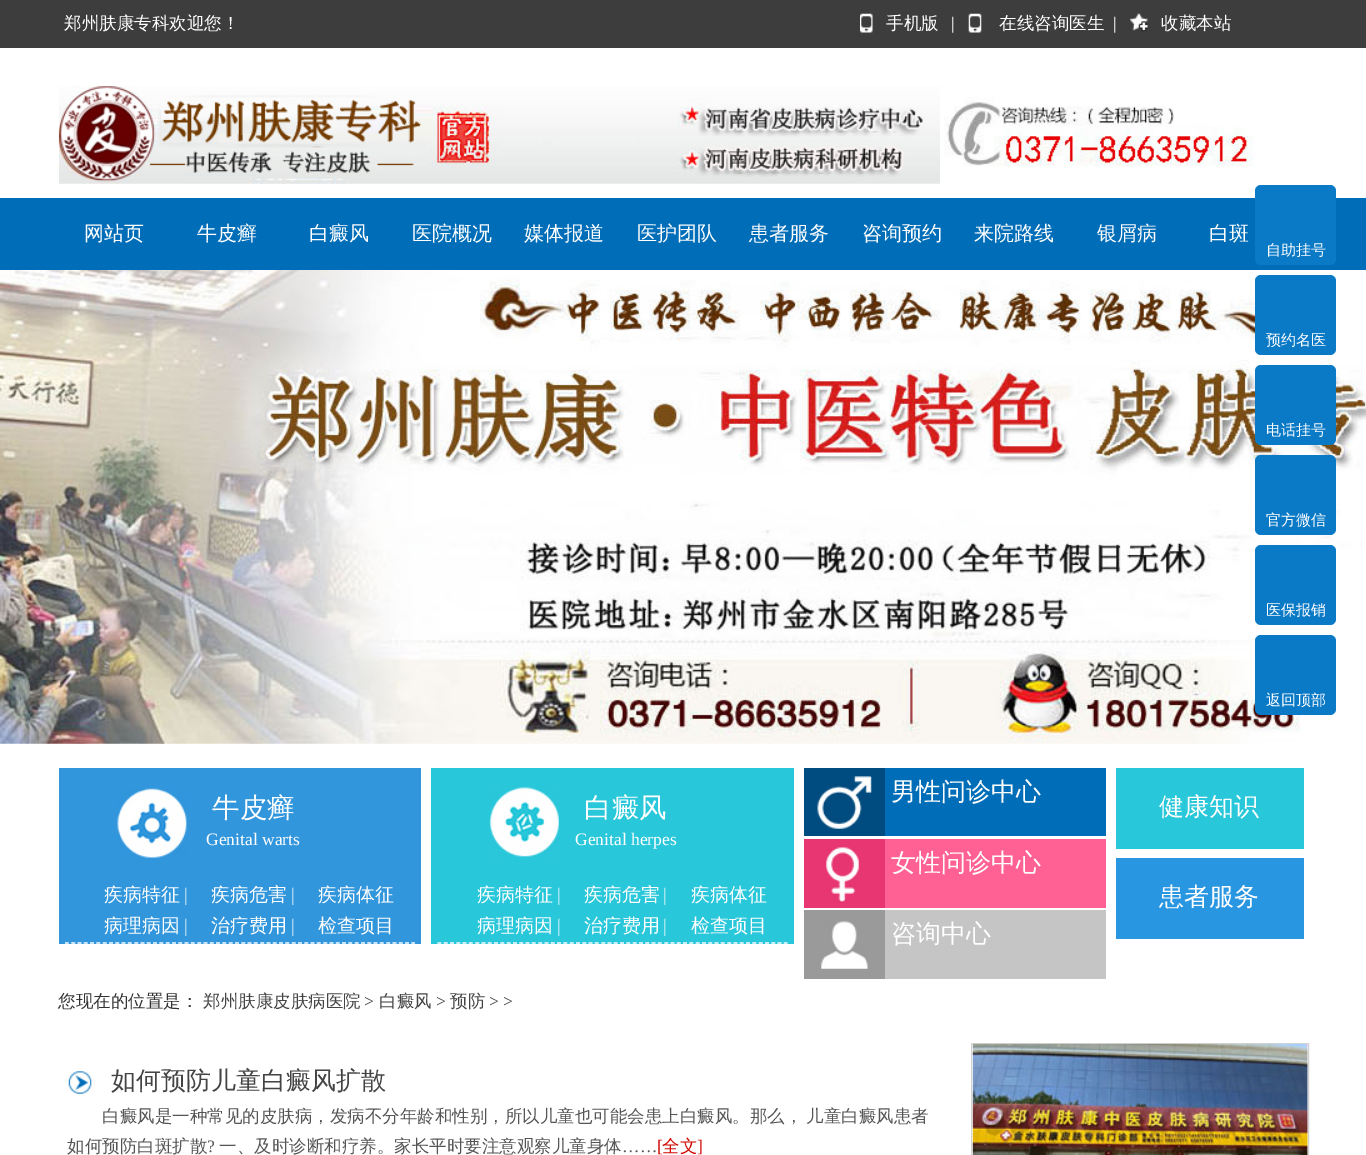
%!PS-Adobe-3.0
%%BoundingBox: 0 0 1366 1155
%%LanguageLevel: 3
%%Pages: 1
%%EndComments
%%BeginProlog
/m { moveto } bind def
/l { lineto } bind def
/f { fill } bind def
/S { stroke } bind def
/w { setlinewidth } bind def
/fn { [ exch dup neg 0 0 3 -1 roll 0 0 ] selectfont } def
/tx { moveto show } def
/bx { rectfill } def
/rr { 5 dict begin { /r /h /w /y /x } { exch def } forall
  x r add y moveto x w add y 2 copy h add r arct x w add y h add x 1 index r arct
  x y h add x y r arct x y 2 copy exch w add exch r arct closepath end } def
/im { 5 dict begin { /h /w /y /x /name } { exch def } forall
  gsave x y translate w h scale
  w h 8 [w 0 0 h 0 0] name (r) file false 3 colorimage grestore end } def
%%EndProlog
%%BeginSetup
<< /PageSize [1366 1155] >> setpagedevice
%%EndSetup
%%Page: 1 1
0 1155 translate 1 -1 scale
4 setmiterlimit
1 setgray
0 0 1366 1155 bx
0.239 setgray
0 0 1366 48 bx
/WenQuanYiZenHei-Medium 17.5 fn
1 setgray
(郑州肤康专科欢迎您！) 64 29 tx
(image0.raw) 860 13 13 20 im
(手机版) 886 29 tx
/LiberationSerif-Regular 17.5 fn
(|) 951 29 tx
(image1.raw) 968 13 14 20 im
/WenQuanYiZenHei-Medium 17.5 fn
(在线咨询医生) 999 29 tx
/LiberationSerif-Regular 17.5 fn
(|) 1113 29 tx
(image2.raw) 1130 13 18 19 im
/WenQuanYiZenHei-Medium 17.5 fn
(收藏本站) 1161 29 tx
(image3.raw) 58 86 882 98 im
(image4.raw) 944 97 310 70 im
0 0.427 0.722 setrgbcolor
0 198 1366 72 bx
/WenQuanYiZenHei-Medium 20 fn
1 setgray
(网站页) 84 240 tx
(牛皮癣) 197 240 tx
(白癜风) 309 240 tx
(医院概况) 412 240 tx
(媒体报道) 524 240 tx
(医护团队) 637 240 tx
(患者服务) 749 240 tx
(咨询预约) 862 240 tx
(来院路线) 974 240 tx
(银屑病) 1097 240 tx
(白斑) 1209 240 tx
0.039 0.478 0.78 setrgbcolor
1255 185 81 80 6 rr f
/WenQuanYiZenHei-Medium 15 fn
1 setgray
(自助挂号) 1266 255 tx
(image5.raw) 0 270 1366 474 im
0.039 0.478 0.78 setrgbcolor
1255 275 81 80 6 rr f
1 setgray
(预约名医) 1266 345 tx
0.039 0.478 0.78 setrgbcolor
1255 365 81 80 6 rr f
1 setgray
(电话挂号) 1266 435 tx
0.039 0.478 0.78 setrgbcolor
1255 455 81 80 6 rr f
1 setgray
(官方微信) 1266 525 tx
0.039 0.478 0.78 setrgbcolor
1255 545 81 80 6 rr f
1 setgray
(医保报销) 1266 615 tx
0.039 0.478 0.78 setrgbcolor
1255 635 81 80 6 rr f
1 setgray
(返回顶部) 1266 705 tx
0.192 0.588 0.863 setrgbcolor
59 768 362 176 bx
(image6.raw) 117 788 70 70 im
/WenQuanYiZenHei-Medium 27.5 fn
1 setgray
(牛皮癣) 212 817 tx
/LiberationSerif-Regular 17.5 fn
(Genital warts) 206 845 tx
1.2 w
[3.75 2.55] 0 setdash
65 943 m 415 943 l S
/WenQuanYiZenHei-Medium 19 fn
(疾病特征) 104 901 tx
/LiberationSerif-Regular 19 fn
(|) 184 901 tx
/WenQuanYiZenHei-Medium 19 fn
(疾病危害) 211 901 tx
/LiberationSerif-Regular 19 fn
(|) 291 901 tx
/WenQuanYiZenHei-Medium 19 fn
(疾病体征) 318 901 tx
(病理病因) 104 932 tx
/LiberationSerif-Regular 19 fn
(|) 184 932 tx
/WenQuanYiZenHei-Medium 19 fn
(治疗费用) 211 932 tx
/LiberationSerif-Regular 19 fn
(|) 291 932 tx
/WenQuanYiZenHei-Medium 19 fn
(检查项目) 318 932 tx
0.161 0.78 0.855 setrgbcolor
431 768 363 176 bx
(image7.raw) 489 785 70 72 im
/WenQuanYiZenHei-Medium 27.5 fn
1 setgray
(白癜风) 584 817 tx
/LiberationSerif-Regular 17.5 fn
(Genital herpes) 575 845 tx
437.5 943 m 787.5 943 l S
/WenQuanYiZenHei-Medium 19 fn
(疾病特征) 477 901 tx
/LiberationSerif-Regular 19 fn
(|) 557 901 tx
/WenQuanYiZenHei-Medium 19 fn
(疾病危害) 584 901 tx
/LiberationSerif-Regular 19 fn
(|) 663 901 tx
/WenQuanYiZenHei-Medium 19 fn
(疾病体征) 691 901 tx
(病理病因) 477 932 tx
/LiberationSerif-Regular 19 fn
(|) 557 932 tx
/WenQuanYiZenHei-Medium 19 fn
(治疗费用) 584 932 tx
/LiberationSerif-Regular 19 fn
(|) 663 932 tx
/WenQuanYiZenHei-Medium 19 fn
(检查项目) 691 932 tx
0 0.427 0.722 setrgbcolor
885 768 221 68 bx
0 0.294 0.498 setrgbcolor
804 768 81 68 bx
(image8.raw) 817 776 55 53 im
/WenQuanYiZenHei-Medium 25 fn
1 setgray
(男性问诊中心) 891 800 tx
1 0.38 0.584 setrgbcolor
885 839 221 69 bx
0.906 0.212 0.443 setrgbcolor
804 839 81 69 bx
(image9.raw) 826 847 33 55 im
1 setgray
(女性问诊中心) 891 871 tx
0.773 setgray
885 910 221 69 bx
0.604 setgray
804 910 81 69 bx
(image10.raw) 821 921 47 48 im
1 setgray
(咨询中心) 891 942 tx
0.161 0.78 0.855 setrgbcolor
1116 768 188 81 bx
1 setgray
(健康知识) 1159 815 tx
0.161 0.588 0.882 setrgbcolor
1116 858 188 81 bx
1 setgray
(患者服务) 1159 905 tx
/WenQuanYiZenHei-Medium 17.5 fn
0.2 setgray
(您现在的位置是：) 58 1007 tx
0.267 setgray
(郑州肤康皮肤病医院) 203 1007 tx
/LiberationSerif-Regular 17.5 fn
0.2 setgray
(>) 364 1007 tx
/WenQuanYiZenHei-Medium 17.5 fn
0.267 setgray
(白癜风) 379 1007 tx
/LiberationSerif-Regular 17.5 fn
0.2 setgray
(>) 436 1007 tx
/WenQuanYiZenHei-Medium 17.5 fn
0.267 setgray
(预防) 450 1007 tx
/LiberationSerif-Regular 17.5 fn
0.2 setgray
(> >) 489 1007 tx
(image11.raw) 68 1071 24 23 im
/WenQuanYiZenHei-Medium 25 fn
0.267 setgray
(如何预防儿童白癜风扩散) 111 1089 tx
/WenQuanYiZenHei-Medium 17.5 fn
0.333 setgray
102 1122 m -1 0 32 (白癜风是一种常见的皮肤病，发病不分年龄和性别，所以儿童也可能会患上白癜风。那么， 儿童白癜风患者) widthshow
(如何预防白斑扩散) 67 1152 tx
/LiberationSerif-Regular 17.5 fn
(?) 207 1152 tx
/WenQuanYiZenHei-Medium 17.5 fn
(一、及时诊断和疗养。家长平时要注意观察儿童身体) 219 1152 tx
/LiberationSerif-Regular 17.5 fn
(……) 622 1152 tx
0.816 0.027 0 setrgbcolor
([) 657 1152 tx
/WenQuanYiZenHei-Medium 17.5 fn
(全文) 662 1152 tx
/LiberationSerif-Regular 17.5 fn
(]) 697 1152 tx
0.824 setgray
1 w
[] 0 setdash
971.5 1043.5 337 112 rectstroke
(image12.raw) 972 1043 336 112 im
showpage
%%EOF
